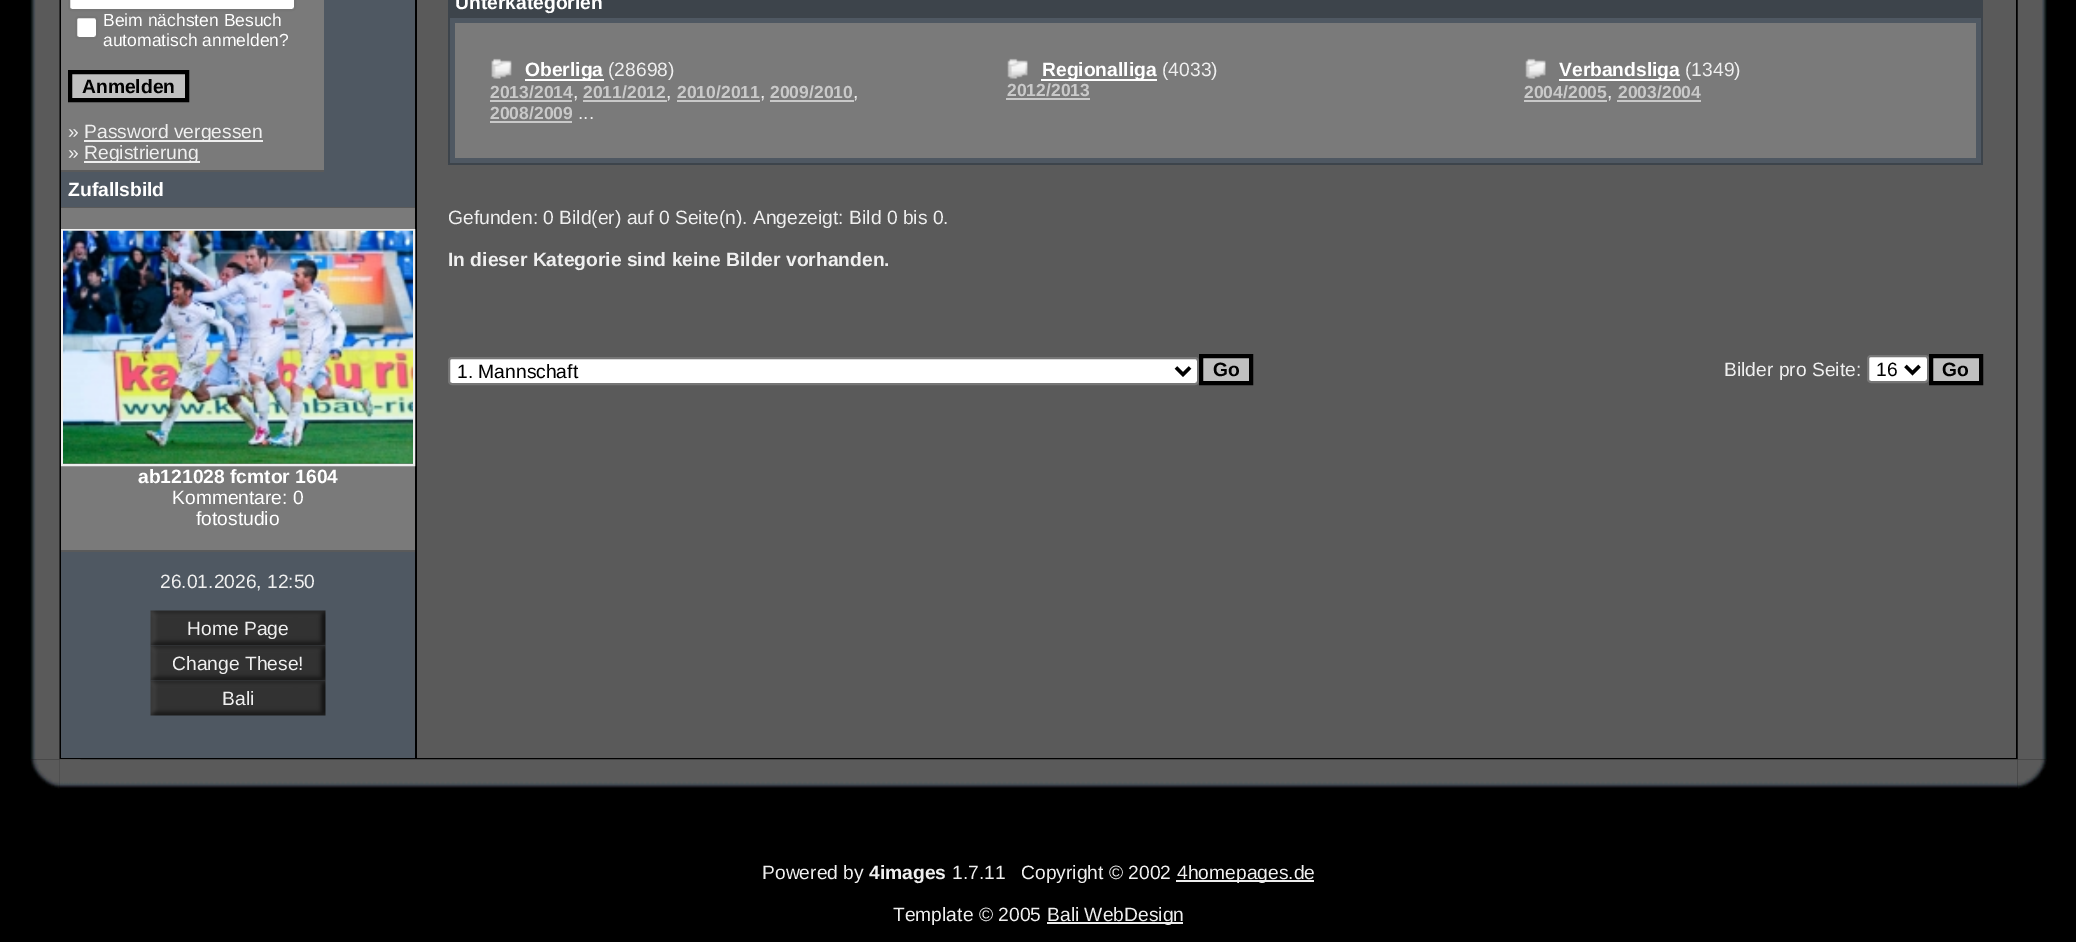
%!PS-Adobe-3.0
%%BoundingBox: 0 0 2076 942
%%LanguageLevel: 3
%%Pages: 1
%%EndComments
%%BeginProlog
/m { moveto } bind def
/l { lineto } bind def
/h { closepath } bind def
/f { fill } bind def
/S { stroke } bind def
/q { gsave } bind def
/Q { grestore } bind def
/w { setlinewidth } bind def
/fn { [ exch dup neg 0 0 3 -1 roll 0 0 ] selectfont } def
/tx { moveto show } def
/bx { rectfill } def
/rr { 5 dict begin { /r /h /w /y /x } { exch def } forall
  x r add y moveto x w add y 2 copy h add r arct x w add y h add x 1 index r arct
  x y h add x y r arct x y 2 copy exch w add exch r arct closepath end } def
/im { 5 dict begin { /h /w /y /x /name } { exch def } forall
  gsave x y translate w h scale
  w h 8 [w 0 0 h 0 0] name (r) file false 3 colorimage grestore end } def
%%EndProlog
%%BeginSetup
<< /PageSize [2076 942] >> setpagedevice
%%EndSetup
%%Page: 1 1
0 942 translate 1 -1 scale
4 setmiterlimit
0 setgray
0 0 2076 942 bx
(image0.raw) 30 0 30 760 im
0.353 setgray
417 0 1599 758 bx
0.31 0.345 0.384 setrgbcolor
61 0 354 758 bx
0.478 setgray
61 0 263 170 bx
1 setgray
69 -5 226 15 3 rr q f Q
0.463 setgray
2 w
S
1 setgray
76 17 21 21 3 rr q f Q
0.463 setgray
S
/LiberationSans-Regular 17.5 fn
1 setgray
(Beim nächsten Besuch) 103 26 tx
(automatisch anmelden?) 103 46 tx
0.753 setgray
70 72 m 187 72 l 187 100 l 70 100 l h q f Q
0 setgray
4 w
S
/LiberationSans-Bold 19.25 fn
(Anmelden) 82 93 tx
/LiberationSans-Regular 19.25 fn
0.937 setgray
(») 68 138 tx
0.933 setgray
84 140 179 2 bx
0.937 setgray
(Password vergessen) 84 138 tx
(») 68 159 tx
0.933 setgray
84 161 116 2 bx
0.937 setgray
(Registrierung) 84 159 tx
0.353 setgray
61 170 263 2 bx
/LiberationSans-Bold 19.25 fn
1 setgray
(Zufallsbild) 68 196 tx
0.353 setgray
61 207 354 1 bx
0.478 setgray
61 208 354 342 bx
0.933 setgray
2 w
62 230 352 235 rectstroke
(image1.raw) 63 230 350 234 im
1 setgray
(ab121028 fcmtor 1604) 138 483 tx
/LiberationSans-Regular 19.25 fn
(Kommentare: 0) 172 504 tx
(fotostudio) 196 525 tx
0.353 setgray
61 550 354 2 bx
0.937 setgray
(26.01.2026, 12:50) 160 588 tx
(image2.raw) 150 610 176 36 im
(Home Page) 187 635 tx
(image3.raw) 150 645 176 36 im
(Change These!) 172 670 tx
(image3.raw) 150 680 176 36 im
(Bali) 222 705 tx
0.239 0.267 0.294 setrgbcolor
448 0 1535 165 bx
/LiberationSans-Bold 19.25 fn
1 setgray
(Unterkategorien) 455 9 tx
0.31 0.345 0.384 setrgbcolor
450 18 1531 145 bx
0.478 setgray
455 23 1521 135 bx
(image4.raw) 491 58 21 21 im
1 setgray
525 79 79 2 bx
(Oberliga) 525 76 tx
/LiberationSans-Regular 19.25 fn
0.937 setgray
(\(28698\)) 608 76 tx
/LiberationSans-Bold 17.5 fn
0.788 setgray
(2013/2014) 490 98 tx
490 100 82 2 bx
/LiberationSans-Regular 19.25 fn
0.937 setgray
(,) 573 98 tx
/LiberationSans-Bold 17.5 fn
0.788 setgray
(2011/2012) 583 98 tx
583 100 84 2 bx
/LiberationSans-Regular 19.25 fn
0.937 setgray
(,) 666 98 tx
/LiberationSans-Bold 17.5 fn
0.788 setgray
(2010/2011) 677 98 tx
677 100 83 2 bx
/LiberationSans-Regular 19.25 fn
0.937 setgray
(,) 760 98 tx
/LiberationSans-Bold 17.5 fn
0.788 setgray
(2009/2010) 770 98 tx
770 100 84 2 bx
/LiberationSans-Regular 19.25 fn
0.937 setgray
(,) 853 98 tx
/LiberationSans-Bold 17.5 fn
0.788 setgray
(2008/2009) 490 119 tx
490 121 82 2 bx
/LiberationSans-Regular 19.25 fn
0.937 setgray
(...) 578 119 tx
(image5.raw) 1007 58 21 21 im
1 setgray
1041 79 116 2 bx
/LiberationSans-Bold 19.25 fn
(Regionalliga) 1042 76 tx
/LiberationSans-Regular 19.25 fn
0.937 setgray
(\(4033\)) 1162 76 tx
/LiberationSans-Bold 17.5 fn
0.788 setgray
(2012/2013) 1007 96 tx
1006 98 84 2 bx
(image6.raw) 1525 58 21 21 im
1 setgray
1559 79 121 2 bx
/LiberationSans-Bold 19.25 fn
(Verbandsliga) 1559 76 tx
/LiberationSans-Regular 19.25 fn
0.937 setgray
(\(1349\)) 1685 76 tx
/LiberationSans-Bold 17.5 fn
0.788 setgray
(2004/2005) 1524 98 tx
1524 100 83 2 bx
/LiberationSans-Regular 19.25 fn
0.937 setgray
(,) 1607 98 tx
/LiberationSans-Bold 17.5 fn
0.788 setgray
(2003/2004) 1618 98 tx
1617 100 84 2 bx
/LiberationSans-Regular 19.25 fn
0.937 setgray
(Gefunden: 0 Bild\(er\) auf 0 Seite\(n\). Angezeigt: Bild 0 bis 0.) 448 224 tx
/LiberationSans-Bold 19.25 fn
(In dieser Kategorie sind keine Bilder vorhanden.) 448 266 tx
1 setgray
449 358 749 26 3 rr q f Q
0.463 setgray
S
0 setgray
3.5 w
1176 367.5 m 1183 374.5 l 1190 367.5 l S
/LiberationSans-Regular 19.25 fn
(1. Mannschaft) 457 378 tx
0.753 setgray
1201 356 m 1251 356 l 1251 383 l 1201 383 l h q f Q
0 setgray
4 w
S
/LiberationSans-Bold 19.25 fn
(Go) 1213 376 tx
/LiberationSans-Regular 19.25 fn
0.937 setgray
(Bilder pro Seite:) 1724 376 tx
1 setgray
1868 356 60 26 3 rr q f Q
0.463 setgray
2 w
S
0 setgray
3.5 w
1905.5 366 m 1912.5 373 l 1919.5 366 l S
(16) 1876 376 tx
0.753 setgray
1931 356 m 1981 356 l 1981 383 l 1931 383 l h q f Q
0 setgray
4 w
S
/LiberationSans-Bold 19.25 fn
(Go) 1942 376 tx
(image7.raw) 2017 0 30 760 im
(image9.raw) 59 759 1959 29 im
(image8.raw) 30 759 30 30 im
(image10.raw) 59 759 22 28 im
(image11.raw) 2017 759 30 30 im
/LiberationSans-Regular 19.25 fn
0.937 setgray
(Powered by) 762 879 tx
/LiberationSans-Bold 19.25 fn
(4images) 869 879 tx
/LiberationSans-Regular 19.25 fn
(1.7.11) 952 879 tx
(Copyright © 2002) 1021 879 tx
0.933 setgray
1176 880 138 2 bx
0.937 setgray
(4homepages.de) 1177 879 tx
(Template © 2005) 893 921 tx
0.933 setgray
1047 922 136 2 bx
0.937 setgray
(Bali WebDesign) 1047 921 tx
showpage
%%EOF
